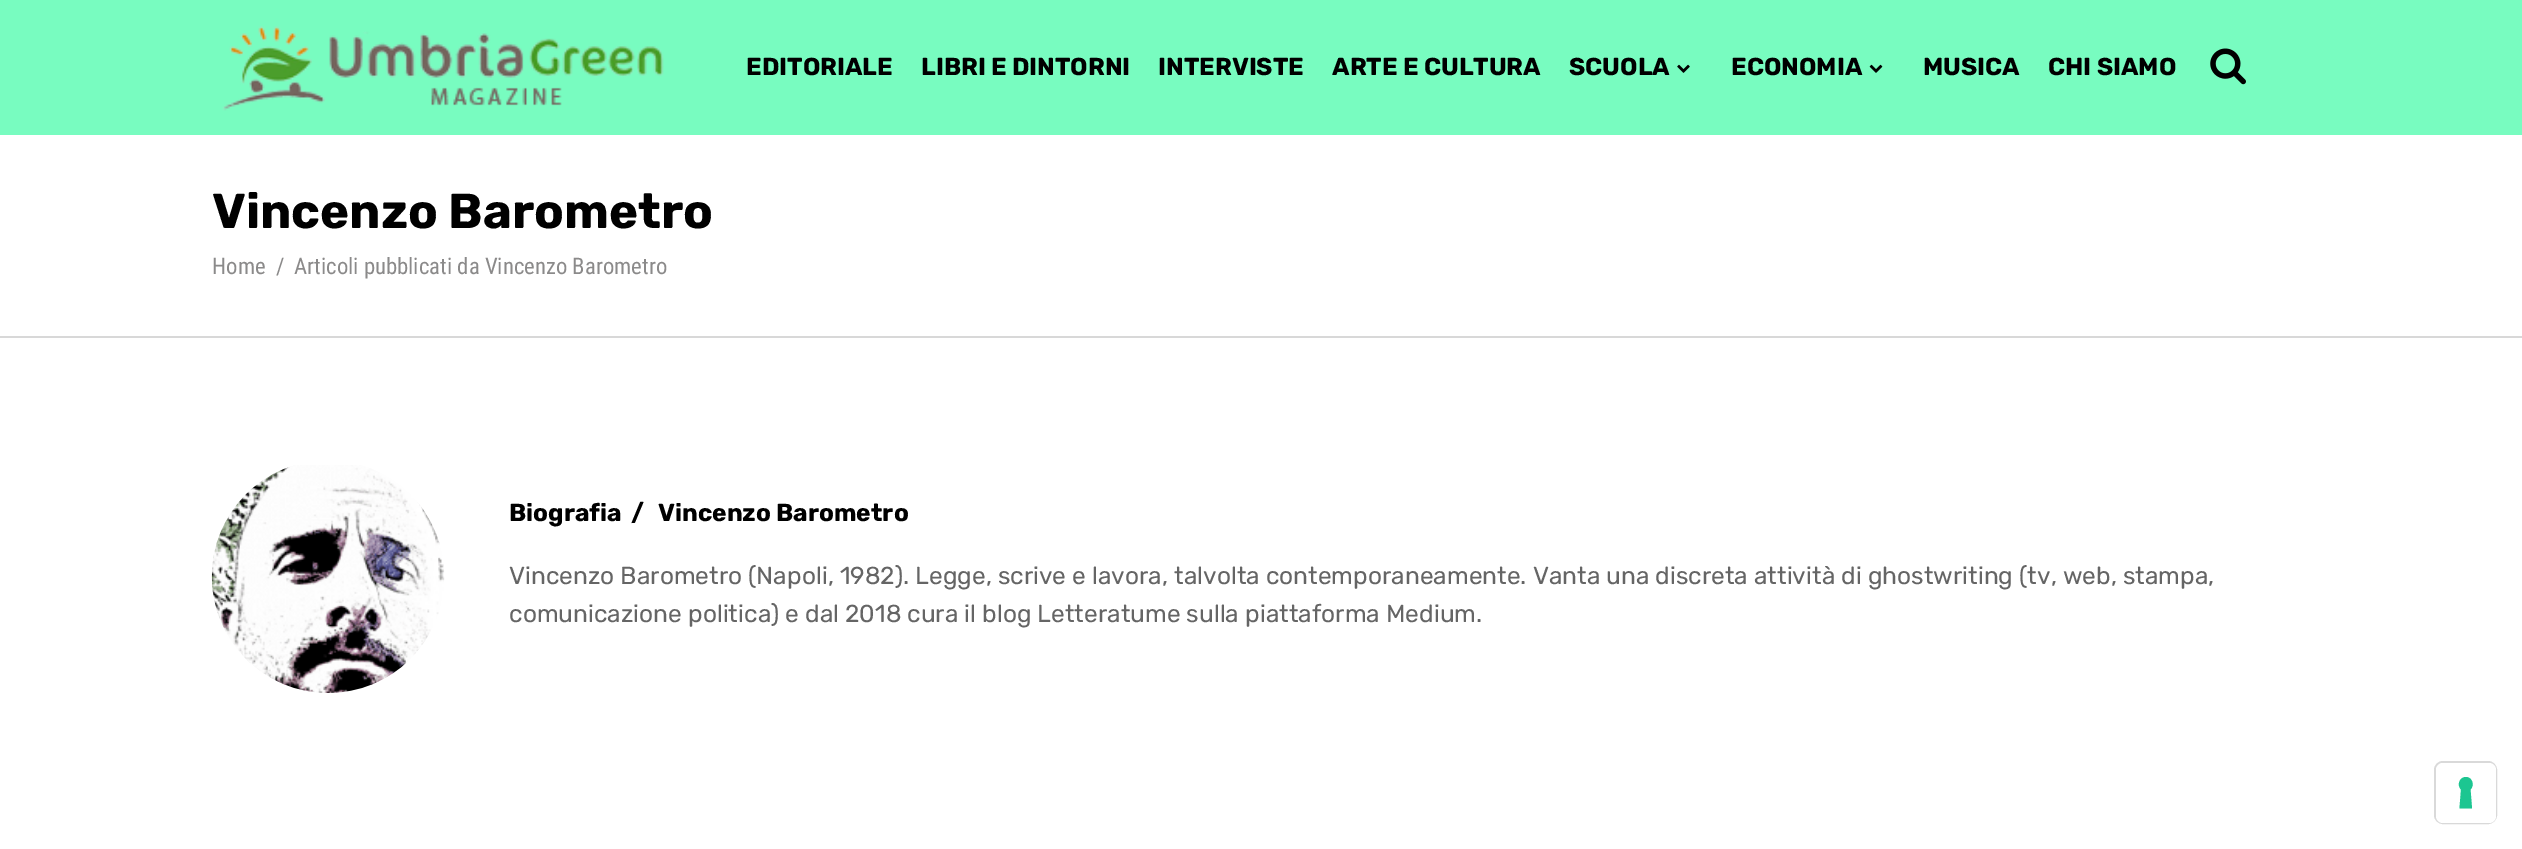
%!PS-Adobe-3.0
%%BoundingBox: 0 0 2522 849
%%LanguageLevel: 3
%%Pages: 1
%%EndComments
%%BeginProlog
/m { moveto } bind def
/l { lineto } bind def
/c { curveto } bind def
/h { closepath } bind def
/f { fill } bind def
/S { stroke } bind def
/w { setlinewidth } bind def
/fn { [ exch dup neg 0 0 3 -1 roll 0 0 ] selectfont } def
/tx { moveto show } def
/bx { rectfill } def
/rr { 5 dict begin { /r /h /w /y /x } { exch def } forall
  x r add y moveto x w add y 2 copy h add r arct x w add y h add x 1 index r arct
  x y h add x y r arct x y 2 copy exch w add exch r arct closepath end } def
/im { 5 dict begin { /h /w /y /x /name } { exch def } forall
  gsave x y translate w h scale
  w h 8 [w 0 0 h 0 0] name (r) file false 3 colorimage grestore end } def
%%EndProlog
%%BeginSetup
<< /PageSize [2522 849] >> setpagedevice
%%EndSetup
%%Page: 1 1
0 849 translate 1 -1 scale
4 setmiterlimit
1 setgray
0 0 2522 849 bx
0.471 0.988 0.753 setrgbcolor
0 0 2522 135 bx
(image0.raw) 222 26 442 85 im
/Rubik-Bold 24.5 fn
0 setgray
(EDITORIALE) 746 75 tx
(LIBRI E DINTORNI) 921 75 tx
(INTERVISTE) 1158 75 tx
(ARTE E CULTURA) 1332 75 tx
(SCUOLA) 1569 75 tx
(image1.raw) 1677 64 13 9 im
(ECONOMIA) 1731 75 tx
(image2.raw) 1869 64 14 9 im
(MUSICA) 1923 75 tx
(CHI SIAMO) 2048 75 tx
(image3.raw) 2210 48 36 37 im
0.847 setgray
0 336 2522 2 bx
/Rubik-Bold 49 fn
0 setgray
(Vincenzo Barometro) 212 228 tx
/RobotoCondensed-Regular 22.75 fn
0.545 0.541 0.541 setrgbcolor
(Home) 212 274 tx
(/) 276 274 tx
(Articoli pubblicati da Vincenzo Barometro) 294 274 tx
(image4.raw) 211 465 234 228 im
/Rubik-Bold 24.5 fn
0 setgray
(Biografia) 509 521 tx
(/) 631 521 tx
(Vincenzo Barometro) 658 521 tx
/Rubik-Regular 24.5 fn
0.396 setgray
(Vincenzo Barometro \(Napoli, 1982\). Legge, scrive e lavora, talvolta contemporaneamente. Vanta una discreta attività di ghostwriting \(tv, web, stampa,) 509 584 tx
(comunicazione politica\) e dal 2018 cura il blog Letteratume sulla piattaforma Medium.) 509 622 tx
0.851 setgray
2 w
2435 762 61 61 8 rr S
1 setgray
2436 763 60 60 7 rr f
0.11 0.776 0.569 setrgbcolor
2466 777 m 2472 777 2475 785 2470.5 789.5 c 2472 808.5 l 2459.5 808.5 l 2461 789.5 l 2456.5 785 2459.5 777 2466 777 c h eofill
showpage
%%EOF
